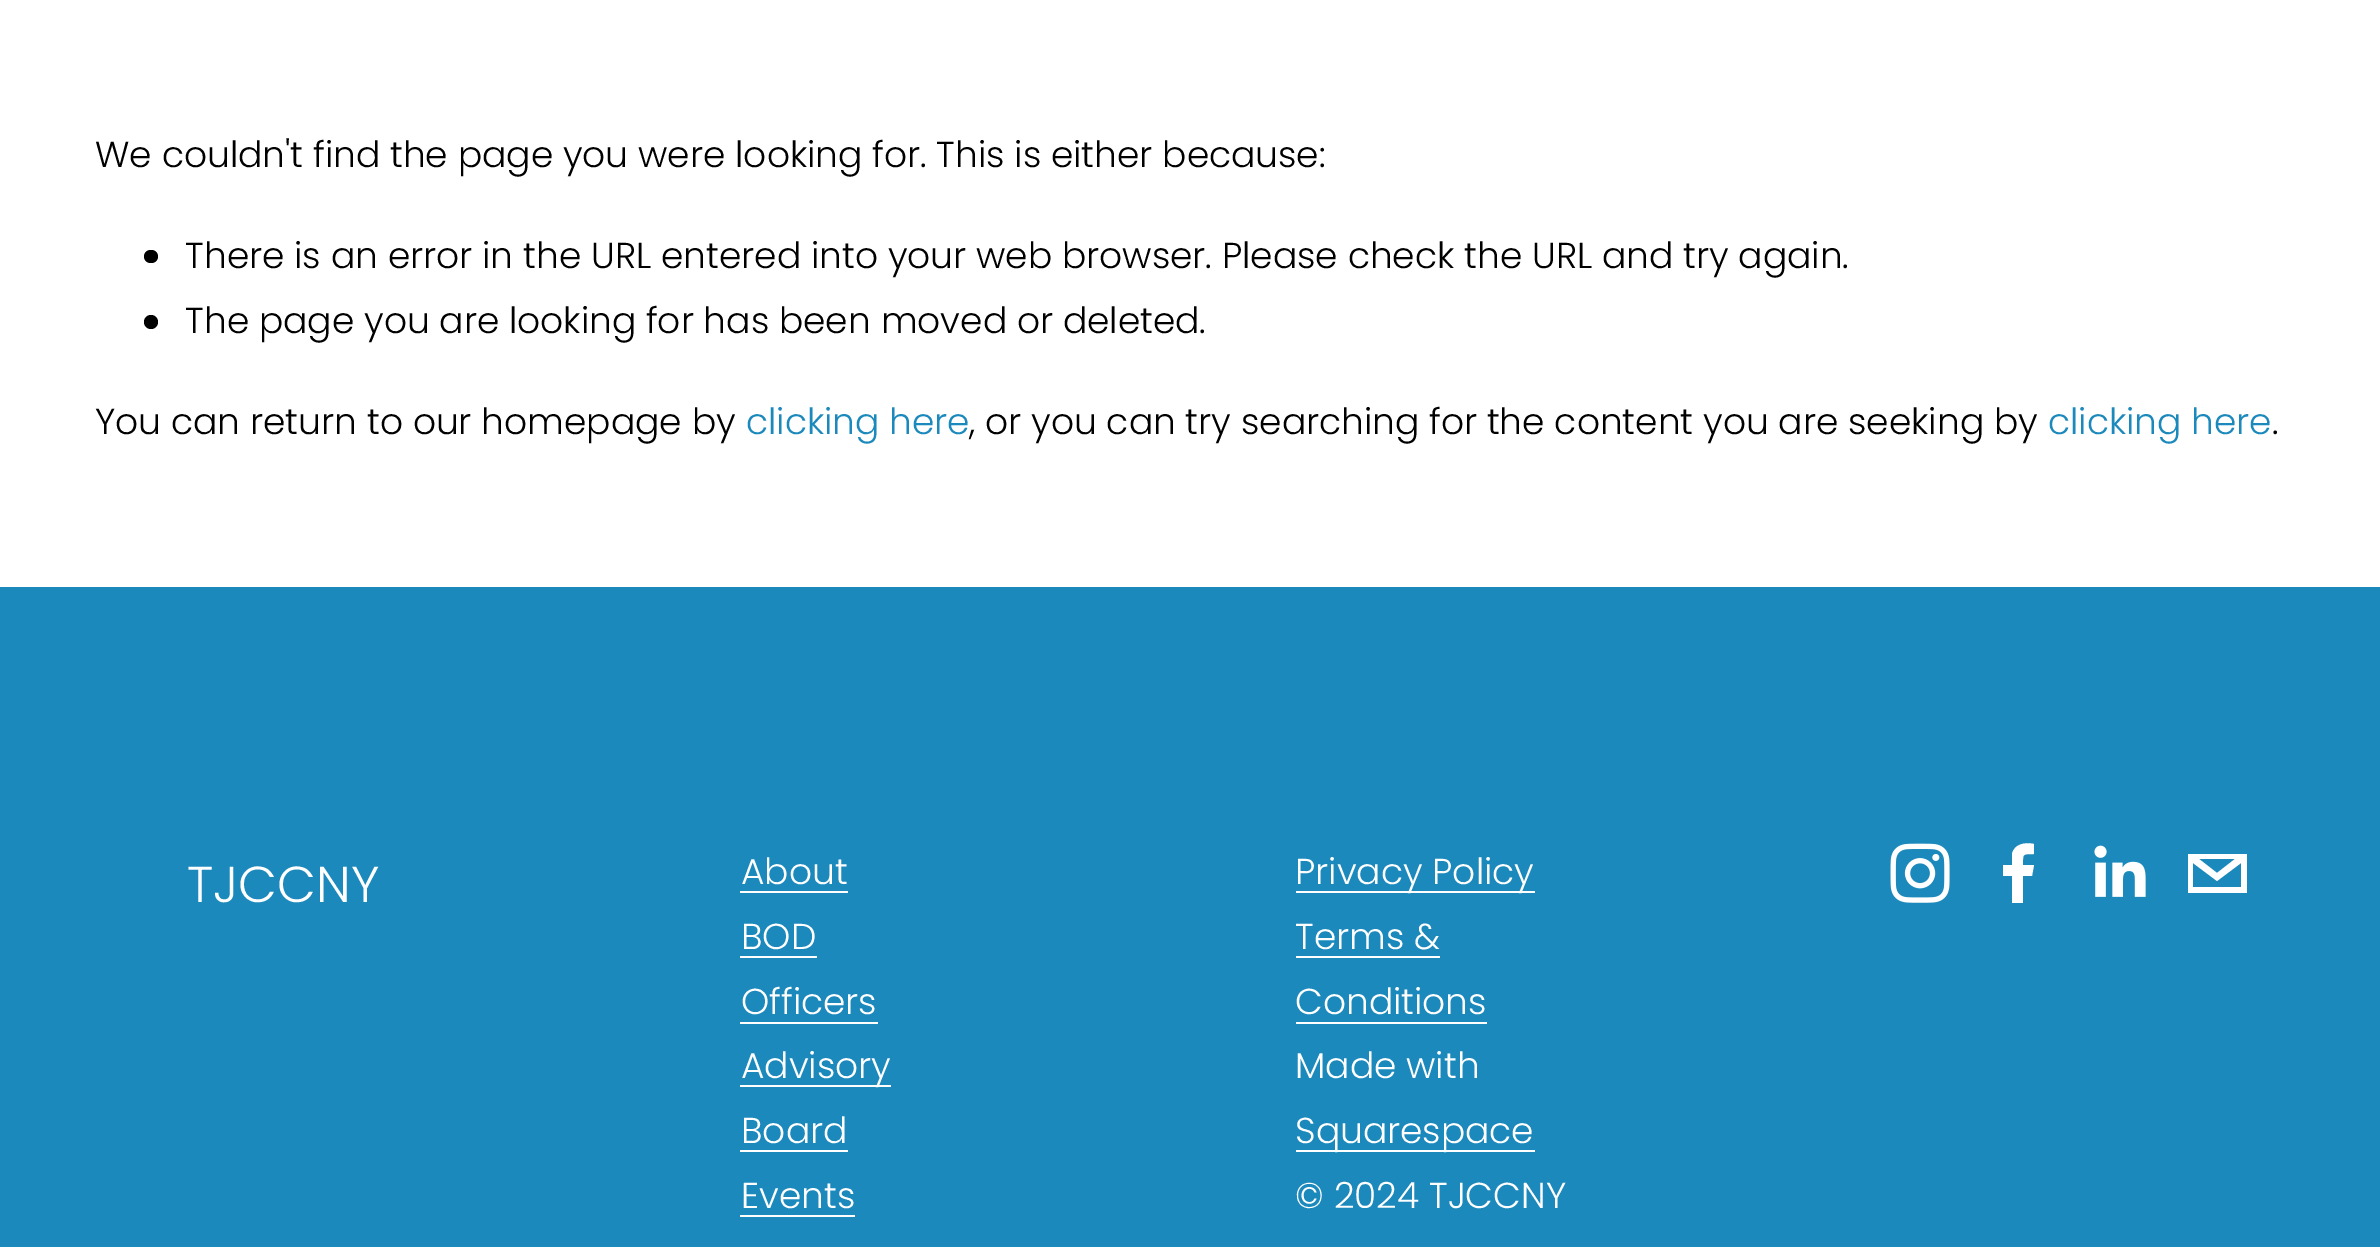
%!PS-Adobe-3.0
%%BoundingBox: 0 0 2380 1247
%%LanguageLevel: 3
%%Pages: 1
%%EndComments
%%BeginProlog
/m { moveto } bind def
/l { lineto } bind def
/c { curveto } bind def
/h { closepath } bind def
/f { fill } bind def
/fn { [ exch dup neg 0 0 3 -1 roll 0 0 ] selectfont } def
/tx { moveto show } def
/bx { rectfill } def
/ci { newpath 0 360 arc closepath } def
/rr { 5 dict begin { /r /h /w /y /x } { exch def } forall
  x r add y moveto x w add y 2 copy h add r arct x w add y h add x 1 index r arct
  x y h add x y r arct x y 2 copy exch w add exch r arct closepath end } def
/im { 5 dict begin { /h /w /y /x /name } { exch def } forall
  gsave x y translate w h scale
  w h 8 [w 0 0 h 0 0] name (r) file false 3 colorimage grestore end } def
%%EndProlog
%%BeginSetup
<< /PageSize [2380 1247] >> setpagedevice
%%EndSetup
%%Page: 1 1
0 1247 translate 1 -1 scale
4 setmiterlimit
1 setgray
0 0 2380 1247 bx
/Poppins-Light 36 fn
0 setgray
(We couldn't find the page you were looking for. This is either because:) 95 167 tx
144 250 14 13 6.5 rr f
(There is an error in the URL entered into your web browser. Please check the URL and try again.) 185 268 tx
151 322 7 ci f
(The page you are looking for has been moved or deleted.) 185 333 tx
(You can return to our homepage by) 95 434 tx
0.11 0.537 0.737 setrgbcolor
(clicking here) 746 434 tx
0 setgray
(, or you can try searching for the content you are seeking by) 969 434 tx
0.11 0.537 0.737 setrgbcolor
(clicking here) 2048 434 tx
0 setgray
(.) 2272 434 tx
0.11 0.537 0.737 setrgbcolor
0 587 2380 660 bx
/Poppins-Light 50.5 fn
1 setgray
(TJCCNY) 187 902 tx
/Poppins-Light 36 fn
(About) 741 884 tx
740 891 108 2 bx
(BOD) 741 949 tx
740 956 77 2 bx
(Officers) 741 1014 tx
740 1022 138 2 bx
740 1085 151 2 bx
(Advisory) 741 1078 tx
(Board) 741 1143 tx
740 1150 108 2 bx
(Events) 741 1208 tx
740 1215 115 2 bx
1296 891 239 2 bx
(Privacy Policy) 1295 884 tx
(Terms &) 1295 949 tx
1296 956 144 2 bx
(Conditions) 1295 1014 tx
1296 1022 191 2 bx
(Made with) 1295 1078 tx
1296 1150 239 2 bx
(Squarespace) 1295 1143 tx
(© 2024 TJCCNY) 1295 1208 tx
(image0.raw) 1890 843 60 60 im
2023 903 m 2023 876 l 2032 876 l 2034 865 l 2023 865 l 2023 854 2022 854 2034 854 c 2034 844 l 2025 842 2014 844 2012 854 c 2012 865 l 2003 865 l 2003 876 l 2012 876 l 2012 903 l h f
(image1.raw) 2094 845 52 52 im
2188 854 m 2188 893 l 2247 893 l 2247 854 l h 2235 859 m 2217 873 l 2199 859 l h 2193 887 m 2193 863 l 2217 881 l 2241 863 l 2241 887 l h f
showpage
%%EOF
